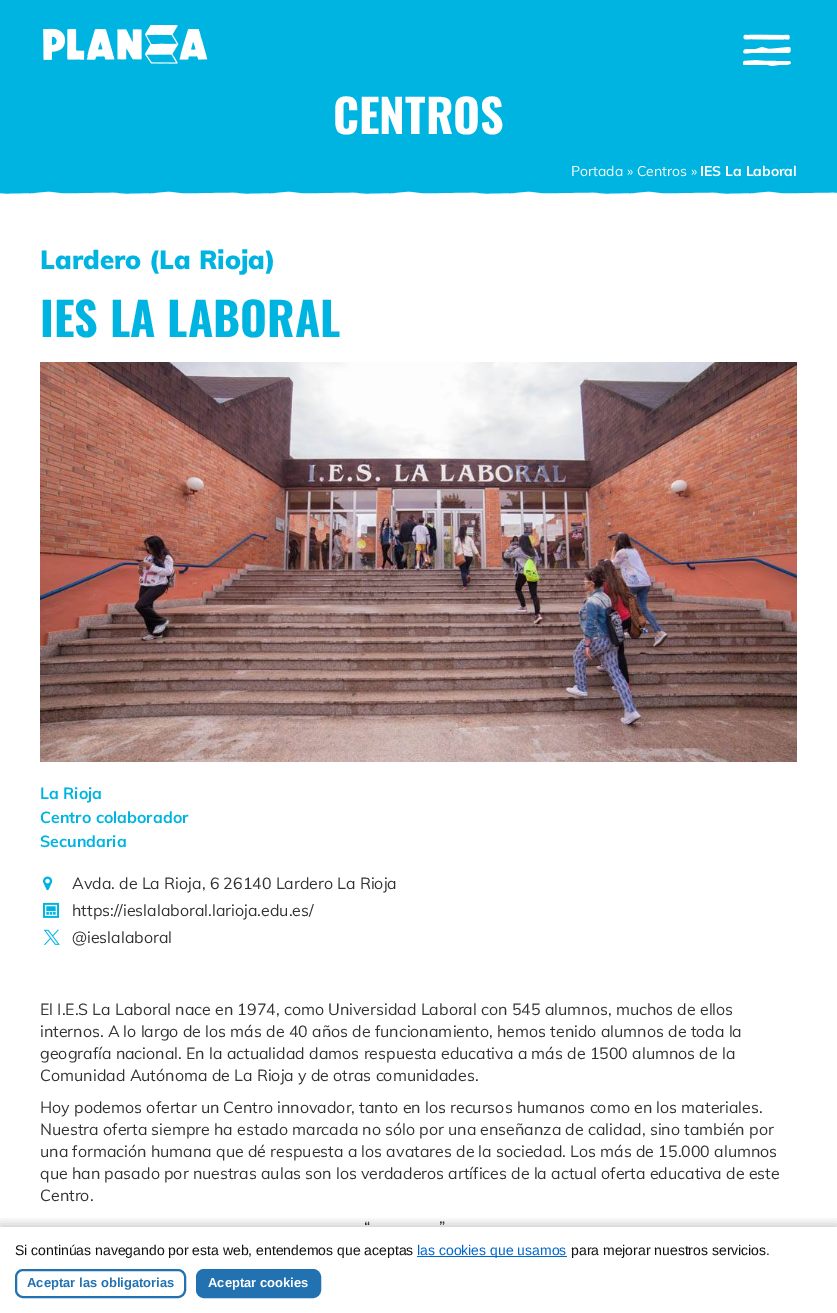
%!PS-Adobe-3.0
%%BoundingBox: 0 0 837 1313
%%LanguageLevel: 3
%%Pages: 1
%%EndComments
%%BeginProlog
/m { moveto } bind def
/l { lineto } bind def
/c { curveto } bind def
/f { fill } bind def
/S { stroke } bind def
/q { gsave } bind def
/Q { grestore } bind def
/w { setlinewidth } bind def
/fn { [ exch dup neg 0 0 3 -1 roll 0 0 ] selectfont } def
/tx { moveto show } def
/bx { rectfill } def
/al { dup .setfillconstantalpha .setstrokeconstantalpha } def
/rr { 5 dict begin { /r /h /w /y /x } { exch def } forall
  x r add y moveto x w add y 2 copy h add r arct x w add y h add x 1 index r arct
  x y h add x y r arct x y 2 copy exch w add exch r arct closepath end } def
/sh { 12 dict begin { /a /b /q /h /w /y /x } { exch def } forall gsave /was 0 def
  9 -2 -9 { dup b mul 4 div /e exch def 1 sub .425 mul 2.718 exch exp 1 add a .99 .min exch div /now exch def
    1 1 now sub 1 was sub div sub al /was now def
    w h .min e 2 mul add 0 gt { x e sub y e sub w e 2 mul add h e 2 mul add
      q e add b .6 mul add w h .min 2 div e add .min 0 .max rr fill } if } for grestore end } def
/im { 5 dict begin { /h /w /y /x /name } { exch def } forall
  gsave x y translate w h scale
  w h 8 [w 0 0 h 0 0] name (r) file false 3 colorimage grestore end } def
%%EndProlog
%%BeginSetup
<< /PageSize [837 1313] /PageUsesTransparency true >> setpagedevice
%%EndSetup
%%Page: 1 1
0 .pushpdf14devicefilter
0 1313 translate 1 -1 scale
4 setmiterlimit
1 setgray
0 0 837 1313 bx
0 0.706 0.882 setrgbcolor
0 0 837 194 bx
(image0.raw) 43 24 165 40 im
(image1.raw) 743 34 47 6 im
1 setgray
789 47 m 769 49 l 762 47 l 756 49 l 751 49 l 750 49 744 49 744 50 c 741 55 748 53 751 53 c 789 53 l 790 52 l 791 51 791 47 789 47 c 787 65 m 778 65 l 772 66 l 768 65 l 744 65 l 743 65 743 62 743 62 c 744 61 l 757 60 l 758 61 775 61 776 61 c 789 61 l 791 61 791 64 790 64 c 787 65 l eofill
/Oswald-Bold 46 fn
(CENTROS) 333 134 tx
/Muli-Regular 14 fn
(Portada » Centros ») 571 176 tx
/Muli-Bold 14 fn
(IES La Laboral) 700 176 tx
(image2.raw) 0 191 837 3 im
/Muli-Black 26 fn
0 0.706 0.882 setrgbcolor
(Lardero \(La Rioja\)) 40 269 tx
/Oswald-Bold 46 fn
(IES LA LABORAL) 40 337 tx
(image3.raw) 40 362 757 400 im
/Muli-Bold 16 fn
(La Rioja) 40 799 tx
(Centro colaborador) 40 823 tx
(Secundaria) 40 847 tx
(image4.raw) 43 876 10 15 im
/Muli-Regular 16 fn
0.2 setgray
(Avda. de La Rioja, 6 26140 Lardero La Rioja) 72 889 tx
(image5.raw) 43 902 16 16 im
(https://ieslalaboral.larioja.edu.es/) 72 916 tx
(image6.raw) 43 929 17 16 im
(@ieslalaboral) 72 943 tx
(El I.E.S La Laboral nace en 1974, como Universidad Laboral con 545 alumnos, muchos de ellos) 40 1015 tx
(internos. A lo largo de los más de 40 años de funcionamiento, hemos tenido alumnos de toda la) 40 1037 tx
(geografía nacional. En la actualidad damos respuesta educativa a más de 1500 alumnos de la) 40 1059 tx
(Comunidad Autónoma de La Rioja y de otras comunidades.) 40 1081 tx
(Hoy podemos ofertar un Centro innovador, tanto en los recursos humanos como en los materiales.) 40 1113 tx
(Nuestra oferta siempre ha estado marcada no sólo por una enseñanza de calidad, sino también por) 40 1135 tx
(una formación humana que dé respuesta a los avatares de la sociedad. Los más de 15.000 alumnos) 40 1157 tx
(que han pasado por nuestras aulas son los verdaderos artífices de la actual oferta educativa de este) 40 1179 tx
(Centro.) 40 1201 tx
(“) 364 1233 tx
(”) 439 1233 tx
q
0 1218 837 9 rectclip
0 setgray
0 1224 837 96 0 5 0.2 sh
Q
/LiberationSans-Regular 14 fn
0.067 setgray
(Si continúas navegando por esta web, entendemos que aceptas) 15 1255 tx
0 0.4 0.8 setrgbcolor
417 1256 150 1 bx
(las cookies que usamos) 417 1255 tx
0.067 setgray
(para mejorar nuestros servicios.) 571 1255 tx
0.133 0.443 0.694 setrgbcolor
2 w
16 1270 169 27 7 rr S
/LiberationSans-Bold 13 fn
(Aceptar las obligatorias) 27 1287 tx
197 1270 123 27 7 rr q f Q
S
1 setgray
(Aceptar cookies) 208 1287 tx
.poppdf14devicefilter showpage
%%EOF
